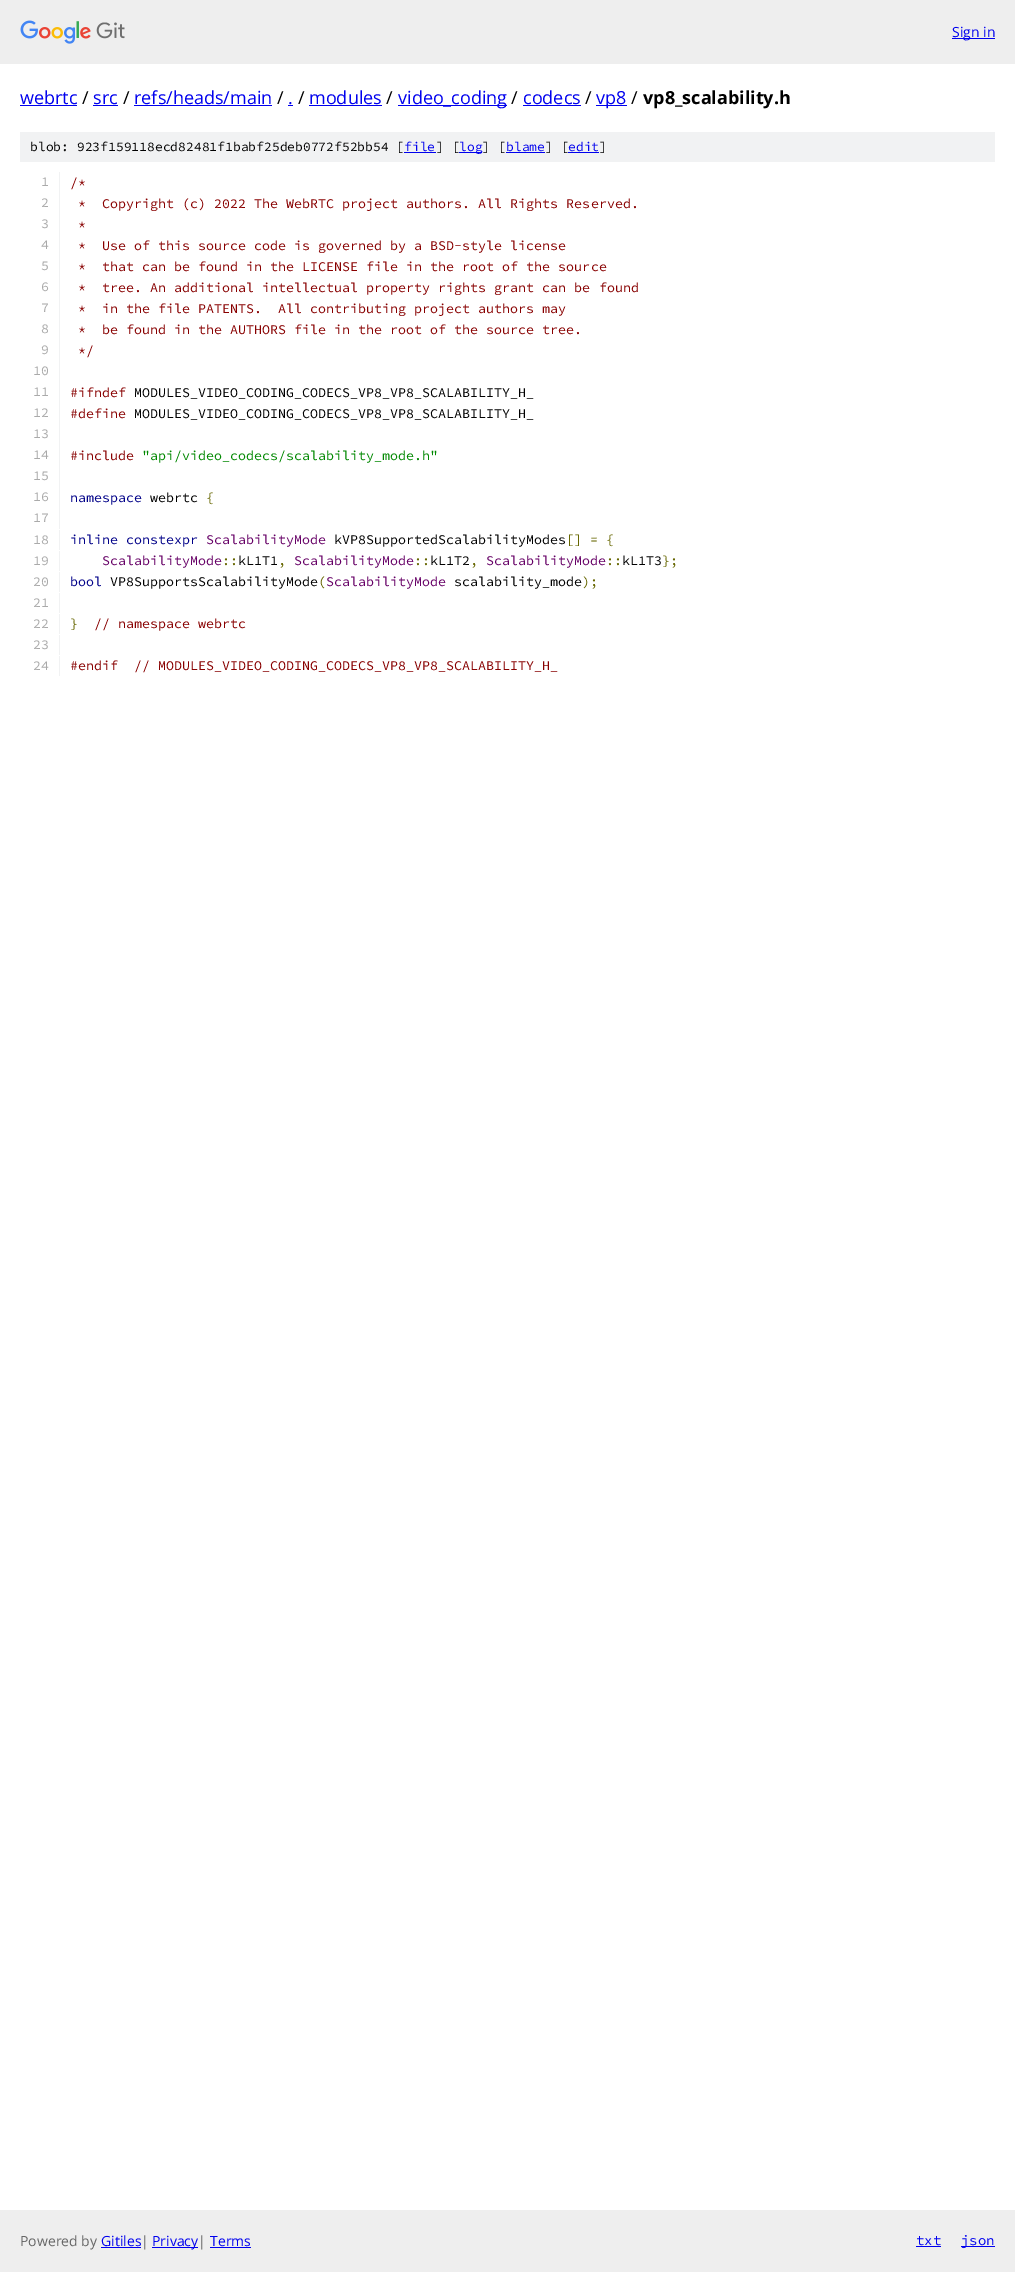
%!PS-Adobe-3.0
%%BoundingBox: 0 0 1015 2272
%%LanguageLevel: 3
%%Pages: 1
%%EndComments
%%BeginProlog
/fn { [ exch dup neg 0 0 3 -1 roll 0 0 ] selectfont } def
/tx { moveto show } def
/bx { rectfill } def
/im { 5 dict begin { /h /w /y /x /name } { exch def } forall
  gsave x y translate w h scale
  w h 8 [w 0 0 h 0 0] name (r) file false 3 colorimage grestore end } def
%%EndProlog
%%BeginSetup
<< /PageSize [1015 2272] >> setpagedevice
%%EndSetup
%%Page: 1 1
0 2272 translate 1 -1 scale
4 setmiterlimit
1 setgray
0 0 1015 2272 bx
0.933 setgray
0 0 1015 64 bx
(image0.raw) 20 20 105 24 im
0 0 0.933 setrgbcolor
952 38 43 1 bx
/OpenSans-Regular 14 fn
(Sign in) 952 37 tx
/OpenSans-Regular 18 fn
(webrtc) 20 104 tx
20 105 57 1 bx
0 setgray
(/) 82 104 tx
0 0 0.933 setrgbcolor
(src) 93 104 tx
93 105 25 1 bx
0 setgray
(/) 123 104 tx
0 0 0.933 setrgbcolor
(refs/heads/main) 134 104 tx
134 105 138 1 bx
0 setgray
(/) 277 104 tx
0 0 0.933 setrgbcolor
(.) 288 104 tx
288 105 5 1 bx
0 setgray
(/) 298 104 tx
0 0 0.933 setrgbcolor
(modules) 309 104 tx
309 105 73 1 bx
0 setgray
(/) 386 104 tx
0 0 0.933 setrgbcolor
398 105 109 1 bx
(video_coding) 398 104 tx
0 setgray
(/) 511 104 tx
0 0 0.933 setrgbcolor
(codecs) 523 104 tx
523 105 58 1 bx
0 setgray
(/) 585 104 tx
0 0 0.933 setrgbcolor
596 105 31 1 bx
(vp8) 596 104 tx
0 setgray
(/) 631 104 tx
/OpenSans-Bold 18 fn
(vp8_scalability.h) 643 104 tx
0.945 0.949 0.953 setrgbcolor
20 132 975 30 bx
/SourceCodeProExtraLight-ExtraLight 13 fn
0 setgray
(blob: 923f159118ecd82481f1babf25deb0772f52bb54 [) 30 151 tx
0 0 0.933 setrgbcolor
(file) 404 151 tx
404 152 32 1 bx
0 setgray
(] [) 436 151 tx
0 0 0.933 setrgbcolor
459 152 23 1 bx
(log) 459 151 tx
0 setgray
(] [) 482 151 tx
0 0 0.933 setrgbcolor
(blame) 506 151 tx
506 152 39 1 bx
0 setgray
(] [) 545 151 tx
0 0 0.933 setrgbcolor
(edit) 568 151 tx
568 152 31 1 bx
0 setgray
(]) 599 151 tx
0.945 0.949 0.953 setrgbcolor
59 172 1 357 bx
/SourceCodeProExtraLight-ExtraLight 13.35 fn
0.667 setgray
(1) 41 186 tx
0.533 0 0 setrgbcolor
(/*) 70 187 tx
0.667 setgray
(2) 41 207 tx
0.533 0 0 setrgbcolor
(*  Copyright \(c\) 2022 The WebRTC project authors. All Rights Reserved.) 78 208 tx
0.667 setgray
(3) 41 228 tx
0.533 0 0 setrgbcolor
(*) 78 229 tx
0.667 setgray
(4) 41 249 tx
0.533 0 0 setrgbcolor
(*  Use of this source code is governed by a BSD-style license) 78 250 tx
0.667 setgray
(5) 41 270 tx
0.533 0 0 setrgbcolor
(*  that can be found in the LICENSE file in the root of the source) 78 271 tx
0.667 setgray
(6) 41 291 tx
0.533 0 0 setrgbcolor
(*  tree. An additional intellectual property rights grant can be found) 78 292 tx
0.667 setgray
(7) 41 312 tx
0.533 0 0 setrgbcolor
(*  in the file PATENTS.  All contributing project authors may) 78 313 tx
0.667 setgray
(8) 41 333 tx
0.533 0 0 setrgbcolor
(*  be found in the AUTHORS file in the root of the source tree.) 78 334 tx
0.667 setgray
(9) 41 354 tx
0.533 0 0 setrgbcolor
(*/) 78 355 tx
0.667 setgray
(10) 33 375 tx
(11) 33 396 tx
0.533 0 0 setrgbcolor
(#ifndef) 70 397 tx
0 setgray
(MODULES_VIDEO_CODING_CODECS_VP8_VP8_SCALABILITY_H_) 134 397 tx
0.667 setgray
(12) 33 417 tx
0.533 0 0 setrgbcolor
(#define) 70 418 tx
0 setgray
(MODULES_VIDEO_CODING_CODECS_VP8_VP8_SCALABILITY_H_) 134 418 tx
0.667 setgray
(13) 33 438 tx
(14) 33 459 tx
0.533 0 0 setrgbcolor
(#include) 70 460 tx
0 0.533 0 setrgbcolor
("api/video_codecs/scalability_mode.h") 142 460 tx
0.667 setgray
(15) 33 480 tx
(16) 33 501 tx
0 0 0.533 setrgbcolor
(namespace) 70 502 tx
0 setgray
(webrtc) 150 502 tx
0.4 0.4 0 setrgbcolor
({) 206 502 tx
0.667 setgray
(17) 33 522 tx
0.945 0.949 0.953 setrgbcolor
59 530 1 20 bx
0.667 setgray
(18) 33 544 tx
0 0 0.533 setrgbcolor
(inline constexpr) 70 544 tx
0.4 0 0.4 setrgbcolor
(ScalabilityMode) 206 544 tx
0 setgray
(kVP8SupportedScalabilityModes) 334 544 tx
0.4 0.4 0 setrgbcolor
([] = {) 566 544 tx
0.945 0.949 0.953 setrgbcolor
59 551 1 20 bx
0.667 setgray
(19) 33 565 tx
0.4 0 0.4 setrgbcolor
(ScalabilityMode) 102 565 tx
0.4 0.4 0 setrgbcolor
(::) 222 565 tx
0 setgray
(kL1T1) 238 565 tx
0.4 0.4 0 setrgbcolor
(,) 278 565 tx
0.4 0 0.4 setrgbcolor
(ScalabilityMode) 294 565 tx
0.4 0.4 0 setrgbcolor
(::) 414 565 tx
0 setgray
(kL1T2) 430 565 tx
0.4 0.4 0 setrgbcolor
(,) 470 565 tx
0.4 0 0.4 setrgbcolor
(ScalabilityMode) 486 565 tx
0.4 0.4 0 setrgbcolor
(::) 606 565 tx
0 setgray
(kL1T3) 622 565 tx
0.4 0.4 0 setrgbcolor
(};) 662 565 tx
0.945 0.949 0.953 setrgbcolor
59 572 1 20 bx
0.667 setgray
(20) 33 586 tx
0 0 0.533 setrgbcolor
(bool) 70 586 tx
0 setgray
(VP8SupportsScalabilityMode) 110 586 tx
0.4 0.4 0 setrgbcolor
(\() 318 586 tx
0.4 0 0.4 setrgbcolor
(ScalabilityMode) 326 586 tx
0 setgray
(scalability_mode) 454 586 tx
0.4 0.4 0 setrgbcolor
(\);) 582 586 tx
0.945 0.949 0.953 setrgbcolor
59 593 1 20 bx
0.667 setgray
(21) 33 607 tx
0.945 0.949 0.953 setrgbcolor
59 614 1 20 bx
0.667 setgray
(22) 33 628 tx
0.4 0.4 0 setrgbcolor
(}) 70 628 tx
0.533 0 0 setrgbcolor
(// namespace webrtc) 94 628 tx
0.945 0.949 0.953 setrgbcolor
59 635 1 20 bx
0.667 setgray
(23) 33 649 tx
0.945 0.949 0.953 setrgbcolor
59 656 1 20 bx
0.667 setgray
(24) 33 670 tx
0.533 0 0 setrgbcolor
(#endif) 70 670 tx
(// MODULES_VIDEO_CODING_CODECS_VP8_VP8_SCALABILITY_H_) 134 670 tx
0.933 setgray
0 2210 1015 62 bx
/OpenSans-Regular 14 fn
0.4 setgray
(Powered by) 20 2246 tx
0 0 0.933 setrgbcolor
(Gitiles) 101 2246 tx
101 2247 40 1 bx
0.4 setgray
(|) 141 2246 tx
0 0 0.933 setrgbcolor
152 2247 46 1 bx
(Privacy) 152 2246 tx
0.4 setgray
(|) 198 2246 tx
0 0 0.933 setrgbcolor
(Terms) 210 2246 tx
210 2247 41 1 bx
/SourceCodeProExtraLight-ExtraLight 14 fn
(txt) 916 2245 tx
916 2246 25 1 bx
961 2246 34 1 bx
(json) 961 2245 tx
showpage
%%EOF
